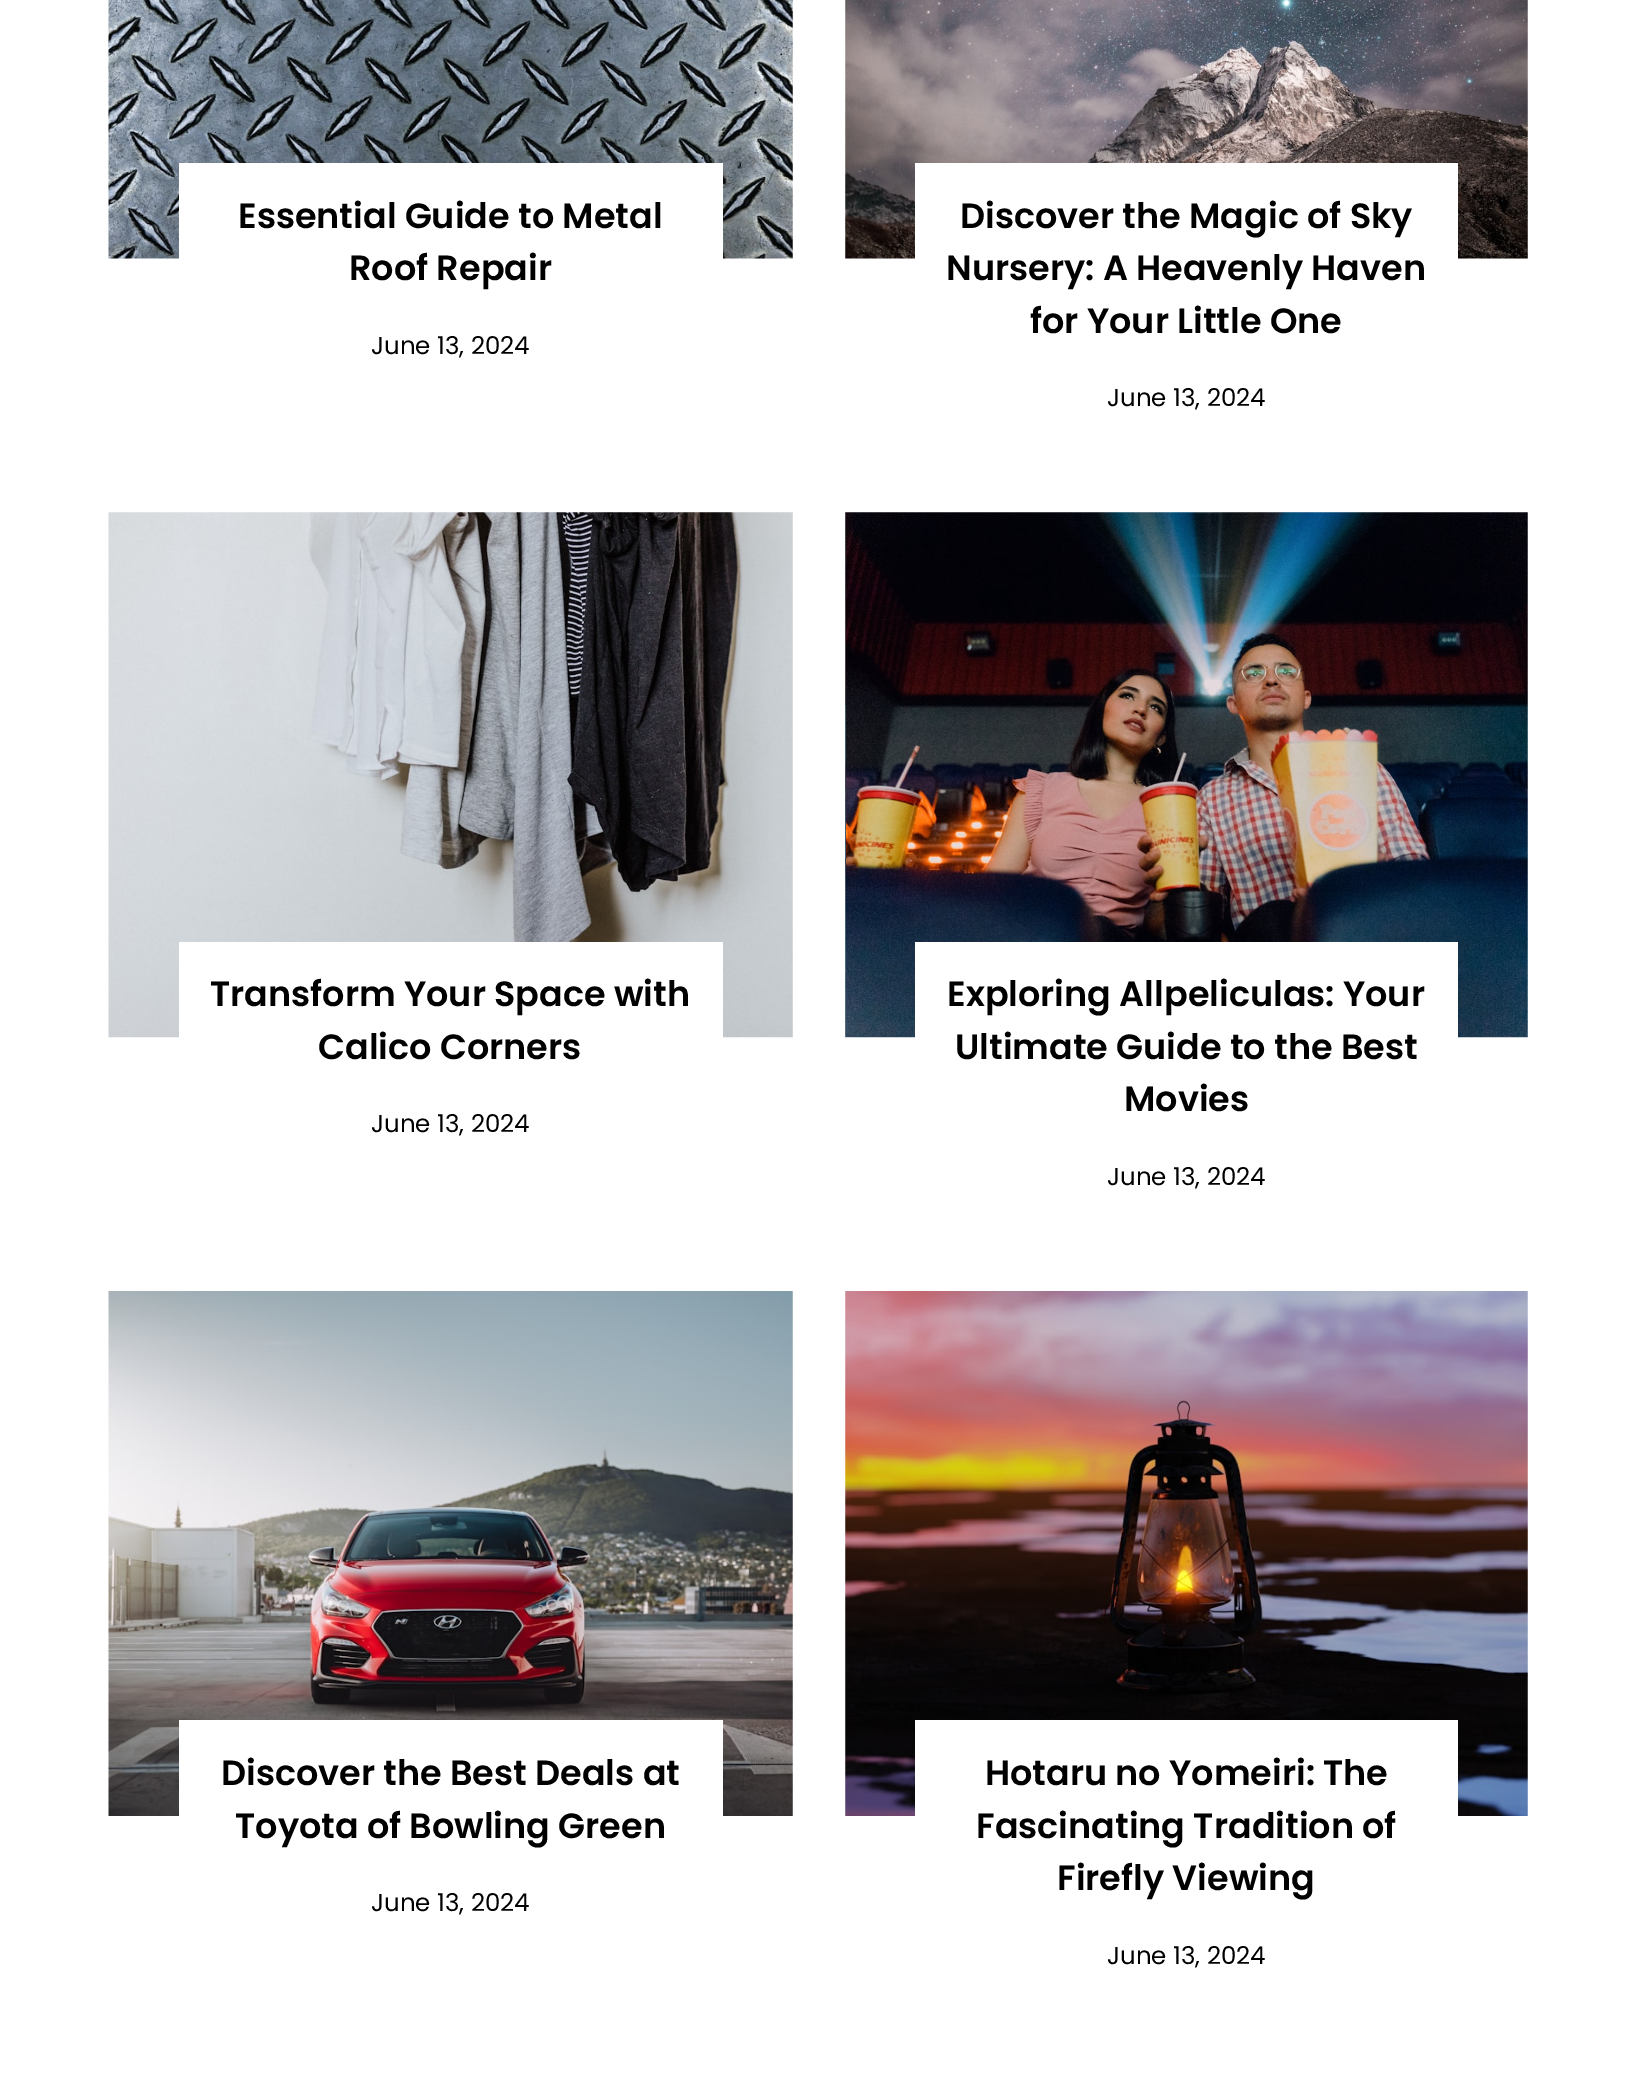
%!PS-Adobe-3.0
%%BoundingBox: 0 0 1635 2099
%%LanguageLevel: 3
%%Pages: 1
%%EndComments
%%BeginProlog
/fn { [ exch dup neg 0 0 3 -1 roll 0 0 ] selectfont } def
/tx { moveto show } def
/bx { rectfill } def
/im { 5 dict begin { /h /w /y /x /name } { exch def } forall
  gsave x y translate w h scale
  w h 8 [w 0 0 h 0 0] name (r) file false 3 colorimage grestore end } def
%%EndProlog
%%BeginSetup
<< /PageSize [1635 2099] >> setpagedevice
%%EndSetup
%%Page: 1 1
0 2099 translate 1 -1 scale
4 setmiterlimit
1 setgray
0 0 1635 2099 bx
(image0.raw) 108 0 685 259 im
179 163 544 96 bx
/Poppins-SemiBold 35 fn
0 setgray
(Essential Guide to Metal) 238 228 tx
(Roof Repair) 349 280 tx
/Poppins-Regular 24.5 fn
(June 13, 2024) 371 354 tx
(image1.raw) 845 0 683 259 im
1 setgray
915 163 543 96 bx
/Poppins-SemiBold 35 fn
0 setgray
(Discover the Magic of Sky) 960 228 tx
(Nursery: A Heavenly Haven) 946 280 tx
(for Your Little One) 1030 333 tx
/Poppins-Regular 24.5 fn
(June 13, 2024) 1107 406 tx
(image2.raw) 108 512 685 526 im
1 setgray
179 942 544 96 bx
/Poppins-SemiBold 35 fn
0 setgray
(Transform Your Space with) 210 1006 tx
(Calico Corners) 318 1059 tx
/Poppins-Regular 24.5 fn
(June 13, 2024) 371 1132 tx
(image3.raw) 845 512 683 526 im
1 setgray
915 942 543 96 bx
/Poppins-SemiBold 35 fn
0 setgray
(Exploring Allpeliculas: Your) 947 1006 tx
(Ultimate Guide to the Best) 955 1059 tx
(Movies) 1124 1111 tx
/Poppins-Regular 24.5 fn
(June 13, 2024) 1107 1185 tx
(image4.raw) 108 1291 685 525 im
1 setgray
179 1720 544 96 bx
/Poppins-SemiBold 35 fn
0 setgray
(Discover the Best Deals at) 221 1785 tx
(Toyota of Bowling Green) 235 1838 tx
/Poppins-Regular 24.5 fn
(June 13, 2024) 371 1911 tx
(image5.raw) 845 1291 683 525 im
1 setgray
915 1720 543 96 bx
/Poppins-SemiBold 35 fn
0 setgray
(Hotaru no Yomeiri: The) 985 1785 tx
(Fascinating Tradition of) 976 1838 tx
(Firefly Viewing) 1057 1890 tx
/Poppins-Regular 24.5 fn
(June 13, 2024) 1107 1964 tx
showpage
%%EOF
